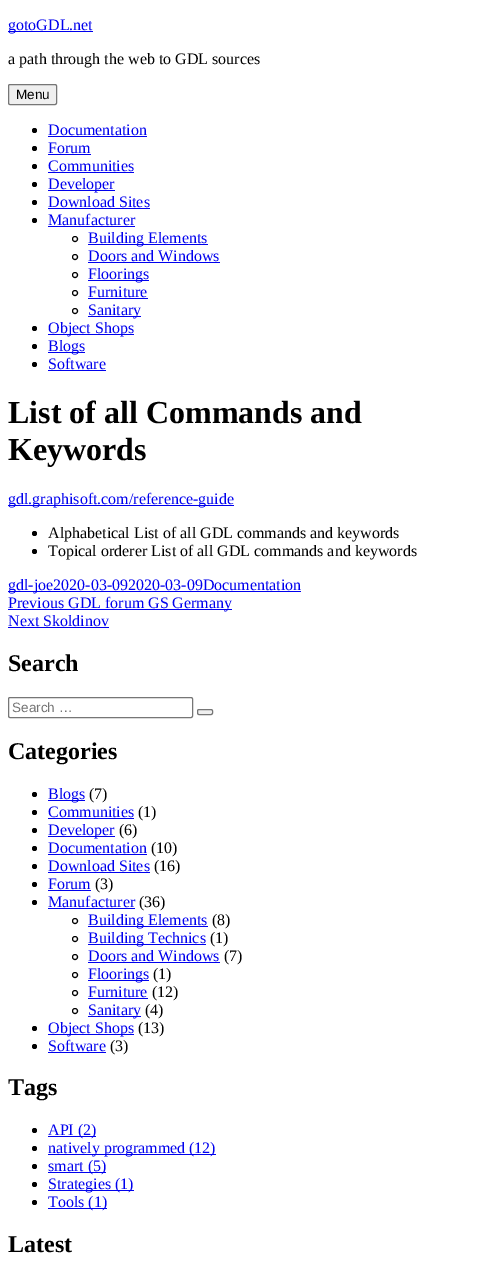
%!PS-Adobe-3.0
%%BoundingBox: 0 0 489 1285
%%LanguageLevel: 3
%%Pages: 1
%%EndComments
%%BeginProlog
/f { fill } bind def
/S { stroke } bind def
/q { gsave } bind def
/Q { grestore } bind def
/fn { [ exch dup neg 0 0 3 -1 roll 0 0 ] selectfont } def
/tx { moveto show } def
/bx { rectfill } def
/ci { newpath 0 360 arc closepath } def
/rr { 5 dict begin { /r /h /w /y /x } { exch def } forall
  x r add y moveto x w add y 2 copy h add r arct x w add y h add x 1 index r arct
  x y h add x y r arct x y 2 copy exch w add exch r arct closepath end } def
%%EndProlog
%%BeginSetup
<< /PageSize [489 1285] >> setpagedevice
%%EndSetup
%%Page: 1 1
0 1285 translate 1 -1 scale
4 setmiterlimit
1 setgray
0 0 489 1285 bx
0 0 0.933 setrgbcolor
8 31 85 1 bx
/LiberationSerif-Regular 16 fn
(gotoGDL.net) 8 30 tx
0 setgray
(a path through the web to GDL sources) 8 64 tx
0.937 setgray
8.5 84.5 48 20 1.5 rr q f Q
0.463 setgray
S
/LiberationSans-Regular 13.5 fn
0 setgray
(Menu) 16 99 tx
34.5 130.5 2.5 ci f
/LiberationSerif-Regular 16 fn
0 0 0.933 setrgbcolor
(Documentation) 48 135 tx
48 136 99 1 bx
0 setgray
34.5 148.5 2.5 ci f
0 0 0.933 setrgbcolor
(Forum) 48 153 tx
48 154 43 1 bx
0 setgray
34.5 166.5 2.5 ci f
0 0 0.933 setrgbcolor
(Communities) 48 171 tx
48 172 86 1 bx
0 setgray
34.5 184.5 2.5 ci f
0 0 0.933 setrgbcolor
48 190 67 1 bx
(Developer) 48 189 tx
0 setgray
34.5 202.5 2.5 ci f
0 0 0.933 setrgbcolor
(Download Sites) 48 207 tx
48 208 102 1 bx
0 setgray
34.5 220.5 2.5 ci f
0 0 0.933 setrgbcolor
(Manufacturer) 48 225 tx
48 226 87 1 bx
0 setgray
75 239 2.5 ci S
0 0 0.933 setrgbcolor
88 244 120 1 bx
(Building Elements) 88 243 tx
0 setgray
75 257 2.5 ci S
0 0 0.933 setrgbcolor
(Doors and Windows) 88 261 tx
88 262 132 1 bx
0 setgray
75 275 2.5 ci S
0 0 0.933 setrgbcolor
88 280 61 1 bx
(Floorings) 88 279 tx
0 setgray
75 293 2.5 ci S
0 0 0.933 setrgbcolor
(Furniture) 88 297 tx
88 298 60 1 bx
0 setgray
75 311 2.5 ci S
0 0 0.933 setrgbcolor
88 316 53 1 bx
(Sanitary) 88 315 tx
0 setgray
34.5 328.5 2.5 ci f
0 0 0.933 setrgbcolor
48 334 86 1 bx
(Object Shops) 48 333 tx
0 setgray
34.5 346.5 2.5 ci f
0 0 0.933 setrgbcolor
48 352 37 1 bx
(Blogs) 48 351 tx
0 setgray
34.5 364.5 2.5 ci f
0 0 0.933 setrgbcolor
(Software) 48 369 tx
48 370 58 1 bx
/LiberationSerif-Bold 32 fn
0 setgray
(List of all Commands and) 8 423 tx
(Keywords) 8 460 tx
0 0 0.933 setrgbcolor
8 505 226 1 bx
/LiberationSerif-Regular 16 fn
(gdl.graphisoft.com/reference-guide) 8 504 tx
0 setgray
34.5 533.5 2.5 ci f
(Alphabetical List of all GDL commands and keywords) 48 538 tx
34.5 551.5 2.5 ci f
(Topical orderer List of all GDL commands and keywords) 48 556 tx
0 0 0.933 setrgbcolor
8 591 293 1 bx
(gdl-joe2020-03-092020-03-09Documentation) 8 590 tx
8 609 224 1 bx
(Previous GDL forum GS Germany) 8 608 tx
(Next Skoldinov) 8 626 tx
8 627 101 1 bx
/LiberationSerif-Bold 24 fn
0 setgray
(Search) 8 671 tx
0.463 setgray
8.5 697.5 184 20 1.5 rr S
/LiberationSans-Regular 13.5 fn
0.459 setgray
(Search …) 12 712 tx
0.937 setgray
197.5 709.5 15 5 1.5 rr q f Q
0.463 setgray
S
/LiberationSerif-Bold 24 fn
0 setgray
(Categories) 8 759 tx
34.5 794.5 2.5 ci f
0 0 0.933 setrgbcolor
48 800 37 1 bx
/LiberationSerif-Regular 16 fn
(Blogs) 48 799 tx
0 setgray
(\(7\)) 89 799 tx
34.5 812.5 2.5 ci f
0 0 0.933 setrgbcolor
(Communities) 48 817 tx
48 818 86 1 bx
0 setgray
(\(1\)) 138 817 tx
34.5 830.5 2.5 ci f
0 0 0.933 setrgbcolor
48 836 67 1 bx
(Developer) 48 835 tx
0 setgray
(\(6\)) 119 835 tx
34.5 848.5 2.5 ci f
0 0 0.933 setrgbcolor
(Documentation) 48 853 tx
48 854 99 1 bx
0 setgray
(\(10\)) 151 853 tx
34.5 866.5 2.5 ci f
0 0 0.933 setrgbcolor
(Download Sites) 48 871 tx
48 872 102 1 bx
0 setgray
(\(16\)) 154 871 tx
34.5 884.5 2.5 ci f
0 0 0.933 setrgbcolor
(Forum) 48 889 tx
48 890 43 1 bx
0 setgray
(\(3\)) 95 889 tx
34.5 902.5 2.5 ci f
0 0 0.933 setrgbcolor
(Manufacturer) 48 907 tx
48 908 87 1 bx
0 setgray
(\(36\)) 139 907 tx
75 921 2.5 ci S
0 0 0.933 setrgbcolor
88 926 120 1 bx
(Building Elements) 88 925 tx
0 setgray
(\(8\)) 212 925 tx
75 939 2.5 ci S
0 0 0.933 setrgbcolor
88 944 118 1 bx
(Building Technics) 88 943 tx
0 setgray
(\(1\)) 210 943 tx
75 957 2.5 ci S
0 0 0.933 setrgbcolor
(Doors and Windows) 88 961 tx
88 962 132 1 bx
0 setgray
(\(7\)) 224 961 tx
75 975 2.5 ci S
0 0 0.933 setrgbcolor
88 980 61 1 bx
(Floorings) 88 979 tx
0 setgray
(\(1\)) 153 979 tx
75 993 2.5 ci S
0 0 0.933 setrgbcolor
(Furniture) 88 997 tx
88 998 60 1 bx
0 setgray
(\(12\)) 152 997 tx
75 1011 2.5 ci S
0 0 0.933 setrgbcolor
88 1016 53 1 bx
(Sanitary) 88 1015 tx
0 setgray
(\(4\)) 145 1015 tx
34.5 1028.5 2.5 ci f
0 0 0.933 setrgbcolor
48 1034 86 1 bx
(Object Shops) 48 1033 tx
0 setgray
(\(13\)) 138 1033 tx
34.5 1046.5 2.5 ci f
0 0 0.933 setrgbcolor
(Software) 48 1051 tx
48 1052 58 1 bx
0 setgray
(\(3\)) 110 1051 tx
/LiberationSerif-Bold 24 fn
(Tags) 8 1095 tx
34.5 1130.5 2.5 ci f
0 0 0.933 setrgbcolor
48 1136 48 1 bx
/LiberationSerif-Regular 16 fn
(API \(2\)) 48 1135 tx
0 setgray
34.5 1148.5 2.5 ci f
0 0 0.933 setrgbcolor
48 1154 137 1 bx
(natively programmed) 48 1153 tx
185 1154 31 1 bx
(\(12\)) 189 1153 tx
0 setgray
34.5 1166.5 2.5 ci f
0 0 0.933 setrgbcolor
48 1172 58 1 bx
(smart \(5\)) 48 1171 tx
0 setgray
34.5 1184.5 2.5 ci f
0 0 0.933 setrgbcolor
48 1190 86 1 bx
(Strategies \(1\)) 48 1189 tx
0 setgray
34.5 1202.5 2.5 ci f
0 0 0.933 setrgbcolor
48 1208 59 1 bx
(Tools \(1\)) 48 1207 tx
/LiberationSerif-Bold 24 fn
0 setgray
(Latest) 8 1252 tx
showpage
%%EOF
